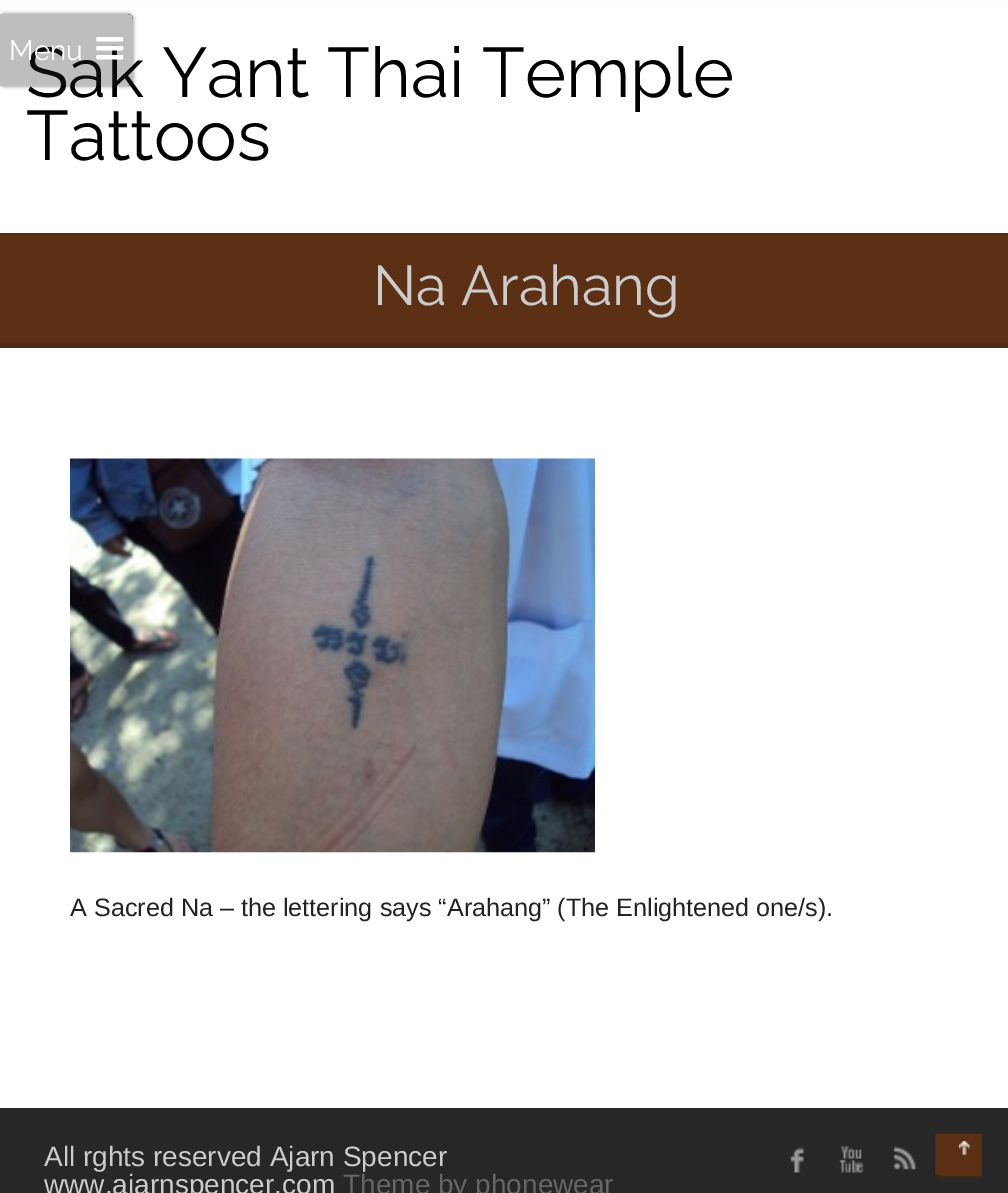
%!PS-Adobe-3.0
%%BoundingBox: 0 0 1008 1193
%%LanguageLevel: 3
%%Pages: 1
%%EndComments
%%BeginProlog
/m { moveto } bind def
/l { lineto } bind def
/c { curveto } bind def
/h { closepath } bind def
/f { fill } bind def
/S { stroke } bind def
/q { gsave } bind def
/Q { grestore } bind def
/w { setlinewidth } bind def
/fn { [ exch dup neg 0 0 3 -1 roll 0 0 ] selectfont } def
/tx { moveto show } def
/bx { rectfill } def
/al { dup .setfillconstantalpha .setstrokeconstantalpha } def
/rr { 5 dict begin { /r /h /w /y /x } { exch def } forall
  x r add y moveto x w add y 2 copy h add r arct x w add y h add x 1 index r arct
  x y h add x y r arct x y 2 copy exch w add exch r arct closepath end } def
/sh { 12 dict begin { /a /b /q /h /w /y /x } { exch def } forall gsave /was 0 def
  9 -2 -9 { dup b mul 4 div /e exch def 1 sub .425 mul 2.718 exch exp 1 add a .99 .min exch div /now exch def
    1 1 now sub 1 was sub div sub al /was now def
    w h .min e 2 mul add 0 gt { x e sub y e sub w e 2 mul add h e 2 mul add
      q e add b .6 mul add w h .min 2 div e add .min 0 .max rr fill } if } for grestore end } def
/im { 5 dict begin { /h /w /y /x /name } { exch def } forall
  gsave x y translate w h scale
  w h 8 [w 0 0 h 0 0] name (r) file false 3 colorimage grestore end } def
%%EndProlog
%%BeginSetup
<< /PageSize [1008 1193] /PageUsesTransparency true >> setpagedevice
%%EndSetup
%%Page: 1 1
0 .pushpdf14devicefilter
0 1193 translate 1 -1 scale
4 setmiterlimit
1 setgray
0 0 1008 1193 bx
0.337 0.176 0.075 setrgbcolor
0 233 1008 2 bx
0.357 0.188 0.078 setrgbcolor
0 235 1008 108 bx
0 setgray
0 2 1008 233 0 1 0.1 sh
1 setgray
0 1 1008 232 bx
q
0 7 m 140 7 l 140 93 l 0 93 l h 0 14 m 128 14 l 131 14 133 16 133 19 c 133 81 l 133 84 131 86 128 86 c 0 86 l h eoclip newpath
0.196 setgray
0 14 133 72 5 2 0.64 sh
Q
/Raleway-Regular 70 fn
0 setgray
(Sak Yant Thai Temple) 26 97 tx
0.3 al
0.157 setgray
0 14 m 128 14 l 131 14 133 16 133 19 c 133 81 l 133 84 131 86 128 86 c 0 86 l h f
/Raleway-Regular 28 fn
1 al
1 setgray
(Menu) 9 60 tx
(image0.raw) 96 37 28 23 im
/Raleway-Regular 70 fn
0 setgray
(Tattoos) 26 160 tx
0.322 0.169 0.071 setrgbcolor
0 343 1008 5 bx
/Raleway-Regular 56 fn
0.8 setgray
(Na Arahang) 373 305 tx
(image1.raw) 70 458 525 395 im
/LiberationSans-Regular 25.2 fn
0.133 setgray
(A Sacred Na – the lettering says “Arahang” \(The Enlightened one/s\).) 70 916 tx
0.153 setgray
0 1108 1008 85 bx
/LiberationSans-Regular 28 fn
0.8 setgray
(All rghts reserved Ajarn Spencer) 44 1166 tx
(www.ajarnspencer.com) 44 1194 tx
0.4 setgray
(Theme by phonewear) 343 1194 tx
(image2.raw) 790 1147 14 26 im
(image3.raw) 839 1145 25 28 im
(image4.raw) 893 1146 23 24 im
0.357 0.188 0.078 setrgbcolor
935 1134 m 982 1134 l 982 1178 l 942 1178 l 938 1178 935 1175 935 1171 c h f
(image5.raw) 959 1141 11 14 im
q
26 1134 956 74 rectclip
0.25 al
0 setgray
1.8 w
993 1175 m 992 1176 990.5 1177 989 1177 c 941.5 1177 l 940 1177 938.5 1176 937 1175 c S
0.1 al
937 1175 m 934 1172 935.5 1166 935.5 1163 c 935.5 1147 l 935.5 1112 930 1117.5 965 1117.5 c 1000 1117.5 995 1112 995 1147 c 995 1163 l 995 1166 996 1172 993 1175 c S
Q
.poppdf14devicefilter showpage
%%EOF
